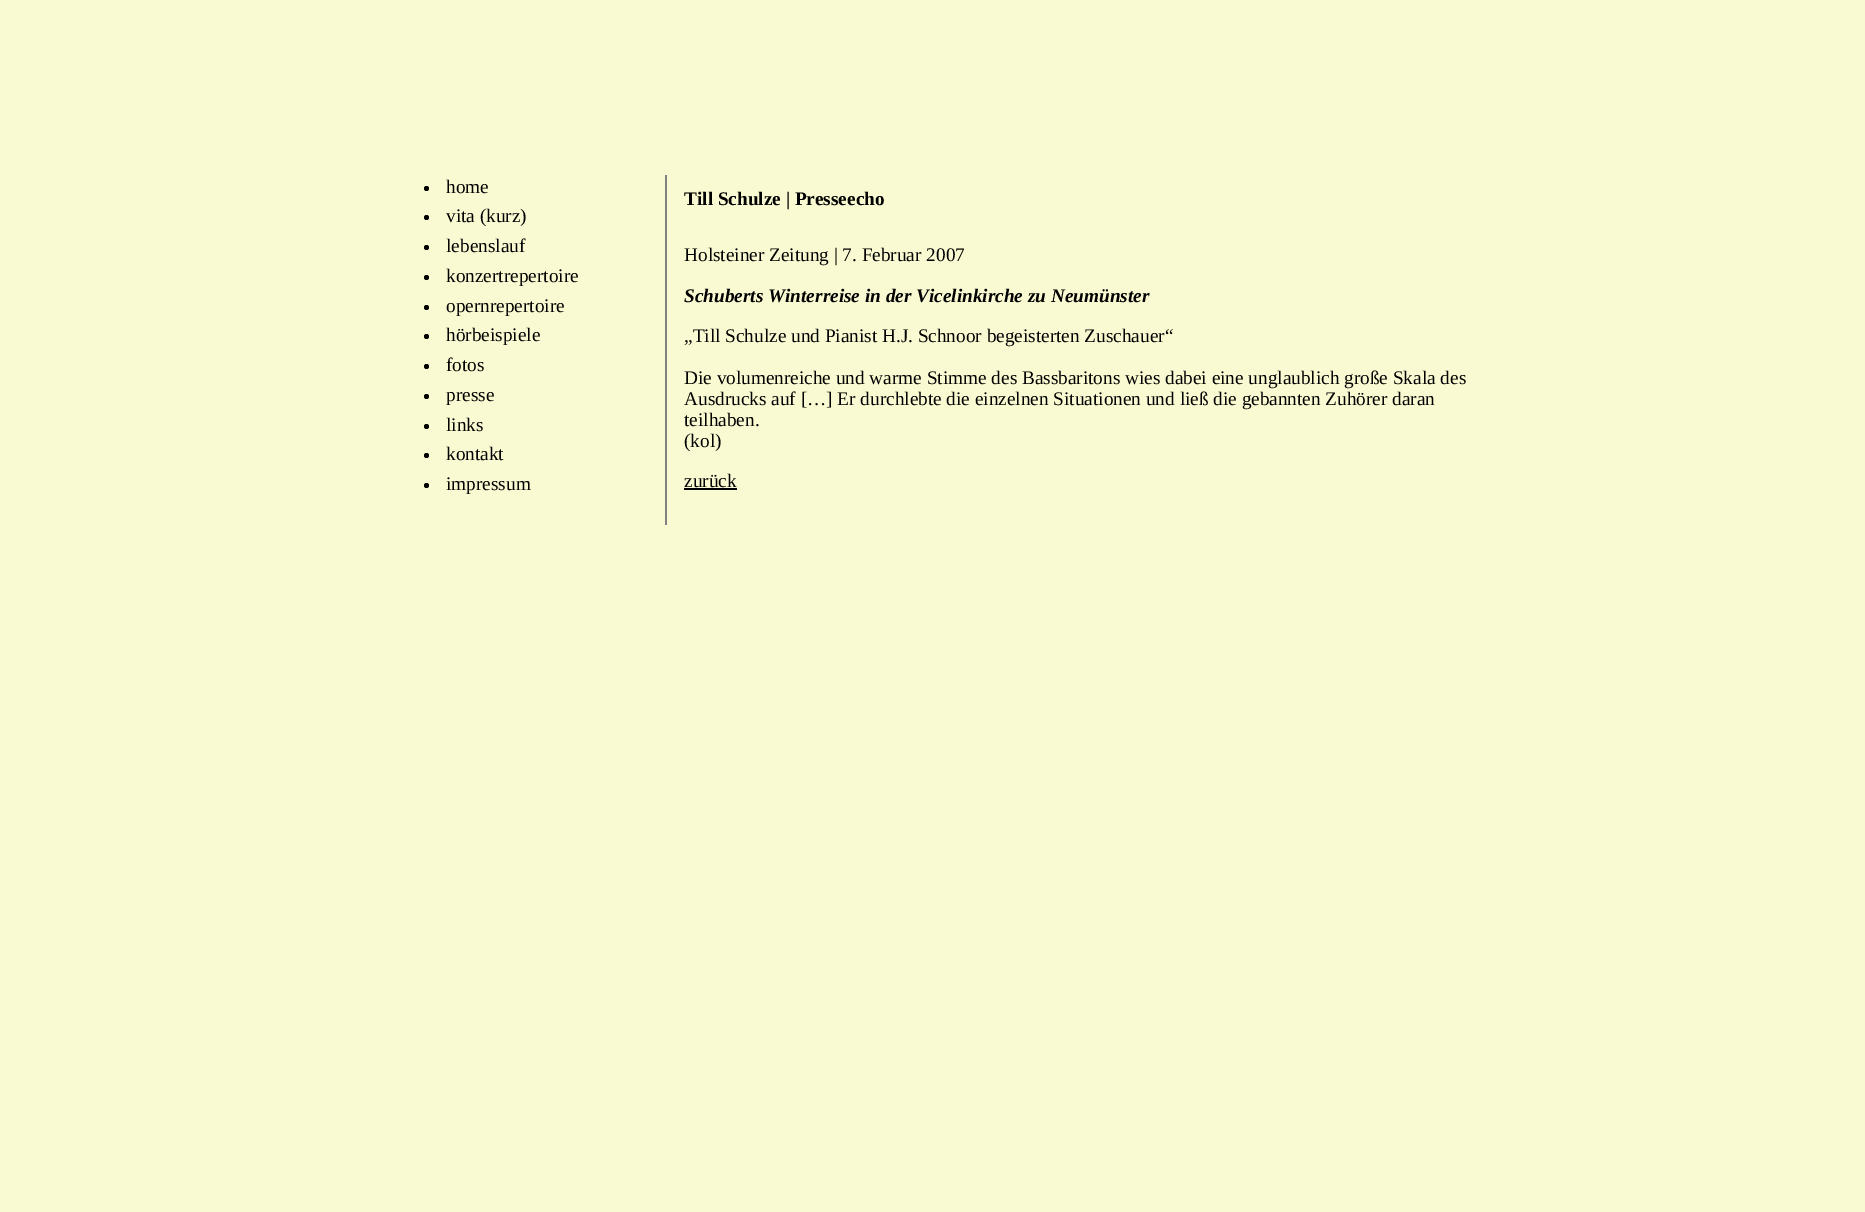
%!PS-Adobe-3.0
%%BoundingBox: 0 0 1865 1212
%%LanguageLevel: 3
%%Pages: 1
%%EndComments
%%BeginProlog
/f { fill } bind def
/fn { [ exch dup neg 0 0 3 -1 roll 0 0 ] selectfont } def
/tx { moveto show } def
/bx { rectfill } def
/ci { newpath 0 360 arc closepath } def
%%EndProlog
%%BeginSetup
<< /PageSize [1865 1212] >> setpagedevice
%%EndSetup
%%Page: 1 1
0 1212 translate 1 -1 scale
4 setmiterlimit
0.98 0.98 0.824 setrgbcolor
0 0 1865 1212 bx
0 setgray
426.5 188.5 2.5 ci f
/LiberationSerif-Regular 19.25 fn
(home) 446 193 tx
426.5 217.5 2.5 ci f
(vita \(kurz\)) 446 222 tx
426.5 247.5 2.5 ci f
(lebenslauf) 446 252 tx
426.5 277.5 2.5 ci f
(konzertrepertoire) 446 282 tx
426.5 307.5 2.5 ci f
(opernrepertoire) 446 312 tx
426.5 336.5 2.5 ci f
(hörbeispiele) 446 341 tx
426.5 366.5 2.5 ci f
(fotos) 446 371 tx
426.5 396.5 2.5 ci f
(presse) 446 401 tx
426.5 426.5 2.5 ci f
(links) 446 431 tx
426.5 455.5 2.5 ci f
(kontakt) 446 460 tx
426.5 485.5 2.5 ci f
(impressum) 446 490 tx
0.502 setgray
665 175 2 350 bx
/LiberationSerif-Bold 19.25 fn
0 setgray
(Till Schulze | Presseecho) 684 205 tx
/LiberationSerif-Regular 19.25 fn
(Holsteiner Zeitung | 7. Februar 2007) 684 261 tx
/LiberationSerif-BoldItalic 19.25 fn
(Schuberts Winterreise in der Vicelinkirche zu Neumünster) 684 302 tx
/LiberationSerif-Regular 19.25 fn
(„Till Schulze und Pianist H.J. Schnoor begeisterten Zuschauer“) 684 342 tx
(Die volumenreiche und warme Stimme des Bassbaritons wies dabei eine unglaublich große Skala des) 684 384 tx
(Ausdrucks auf […] Er durchlebte die einzelnen Situationen und ließ die gebannten Zuhörer daran) 684 405 tx
(teilhaben.) 684 426 tx
(\(kol\)) 684 447 tx
(zurück) 684 487 tx
684 488 53 2 bx
showpage
%%EOF
